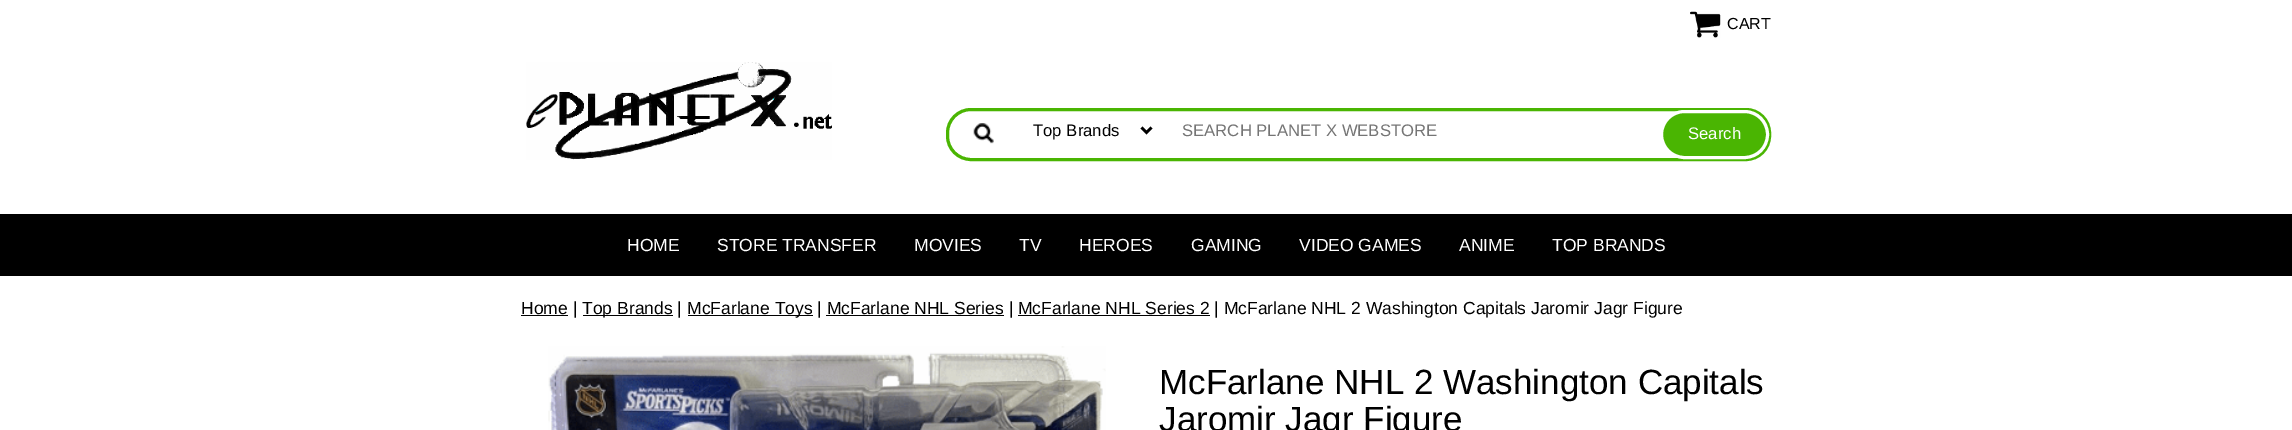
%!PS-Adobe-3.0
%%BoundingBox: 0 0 2292 430
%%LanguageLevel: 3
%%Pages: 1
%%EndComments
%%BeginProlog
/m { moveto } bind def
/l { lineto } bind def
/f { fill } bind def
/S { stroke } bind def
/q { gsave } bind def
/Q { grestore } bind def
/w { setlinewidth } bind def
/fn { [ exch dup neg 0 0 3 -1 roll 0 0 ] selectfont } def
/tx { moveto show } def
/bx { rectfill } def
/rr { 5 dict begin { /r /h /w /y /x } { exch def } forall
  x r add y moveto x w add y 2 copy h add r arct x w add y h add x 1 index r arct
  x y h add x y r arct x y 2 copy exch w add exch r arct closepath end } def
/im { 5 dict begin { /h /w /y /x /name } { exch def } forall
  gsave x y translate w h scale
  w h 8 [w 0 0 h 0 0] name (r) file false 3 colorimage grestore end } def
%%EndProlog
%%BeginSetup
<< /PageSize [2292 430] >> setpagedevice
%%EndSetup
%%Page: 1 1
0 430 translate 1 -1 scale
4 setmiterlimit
1 setgray
0 0 2292 430 bx
(image0.raw) 1690 11 31 27 im
/LiberationSans-Regular 16 fn
0 setgray
(CART) 1727 29 tx
(image1.raw) 526 62 306 98 im
(image2.raw) 973 123 21 21 im
0.29 0.71 0.008 setrgbcolor
3 w
947.5 109.5 822 50 23.5 rr S
0 setgray
2.5 w
1141.5 127.5 m 1146.5 132.5 l 1151.5 127.5 l S
/LiberationSans-Regular 16.7 fn
(Top Brands) 1033 136 tx
0.459 setgray
(SEARCH PLANET X WEBSTORE) 1182 136 tx
0.29 0.71 0.008 setrgbcolor
1661.5 111.5 106 46 23 rr q f Q
1 setgray
3 w
S
(Search) 1688 139 tx
0 setgray
0 214 2292 62 bx
/LiberationSans-Regular 17.5 fn
1 setgray
(HOME) 627 251 tx
(STORE TRANSFER) 717 251 tx
(MOVIES) 914 251 tx
(TV) 1019 251 tx
(HEROES) 1079 251 tx
(GAMING) 1191 251 tx
(VIDEO GAMES) 1299 251 tx
(ANIME) 1459 251 tx
(TOP BRANDS) 1552 251 tx
0 setgray
521 315 47 1 bx
(Home |) 521 314 tx
583 315 90 1 bx
(Top Brands |) 582 314 tx
688 315 125 1 bx
(McFarlane Toys | McFarlane NHL Series | McFarlane NHL Series 2 | McFarlane NHL 2 Washington Capitals Jaromir Jagr Figure) 687 314 tx
826 315 178 1 bx
1018 315 192 1 bx
(image3.raw) 548 346 558 84 im
/LiberationSans-Regular 35 fn
(McFarlane NHL 2 Washington Capitals) 1159 394 tx
(Jaromir Jagr Figure) 1159 431 tx
showpage
%%EOF
